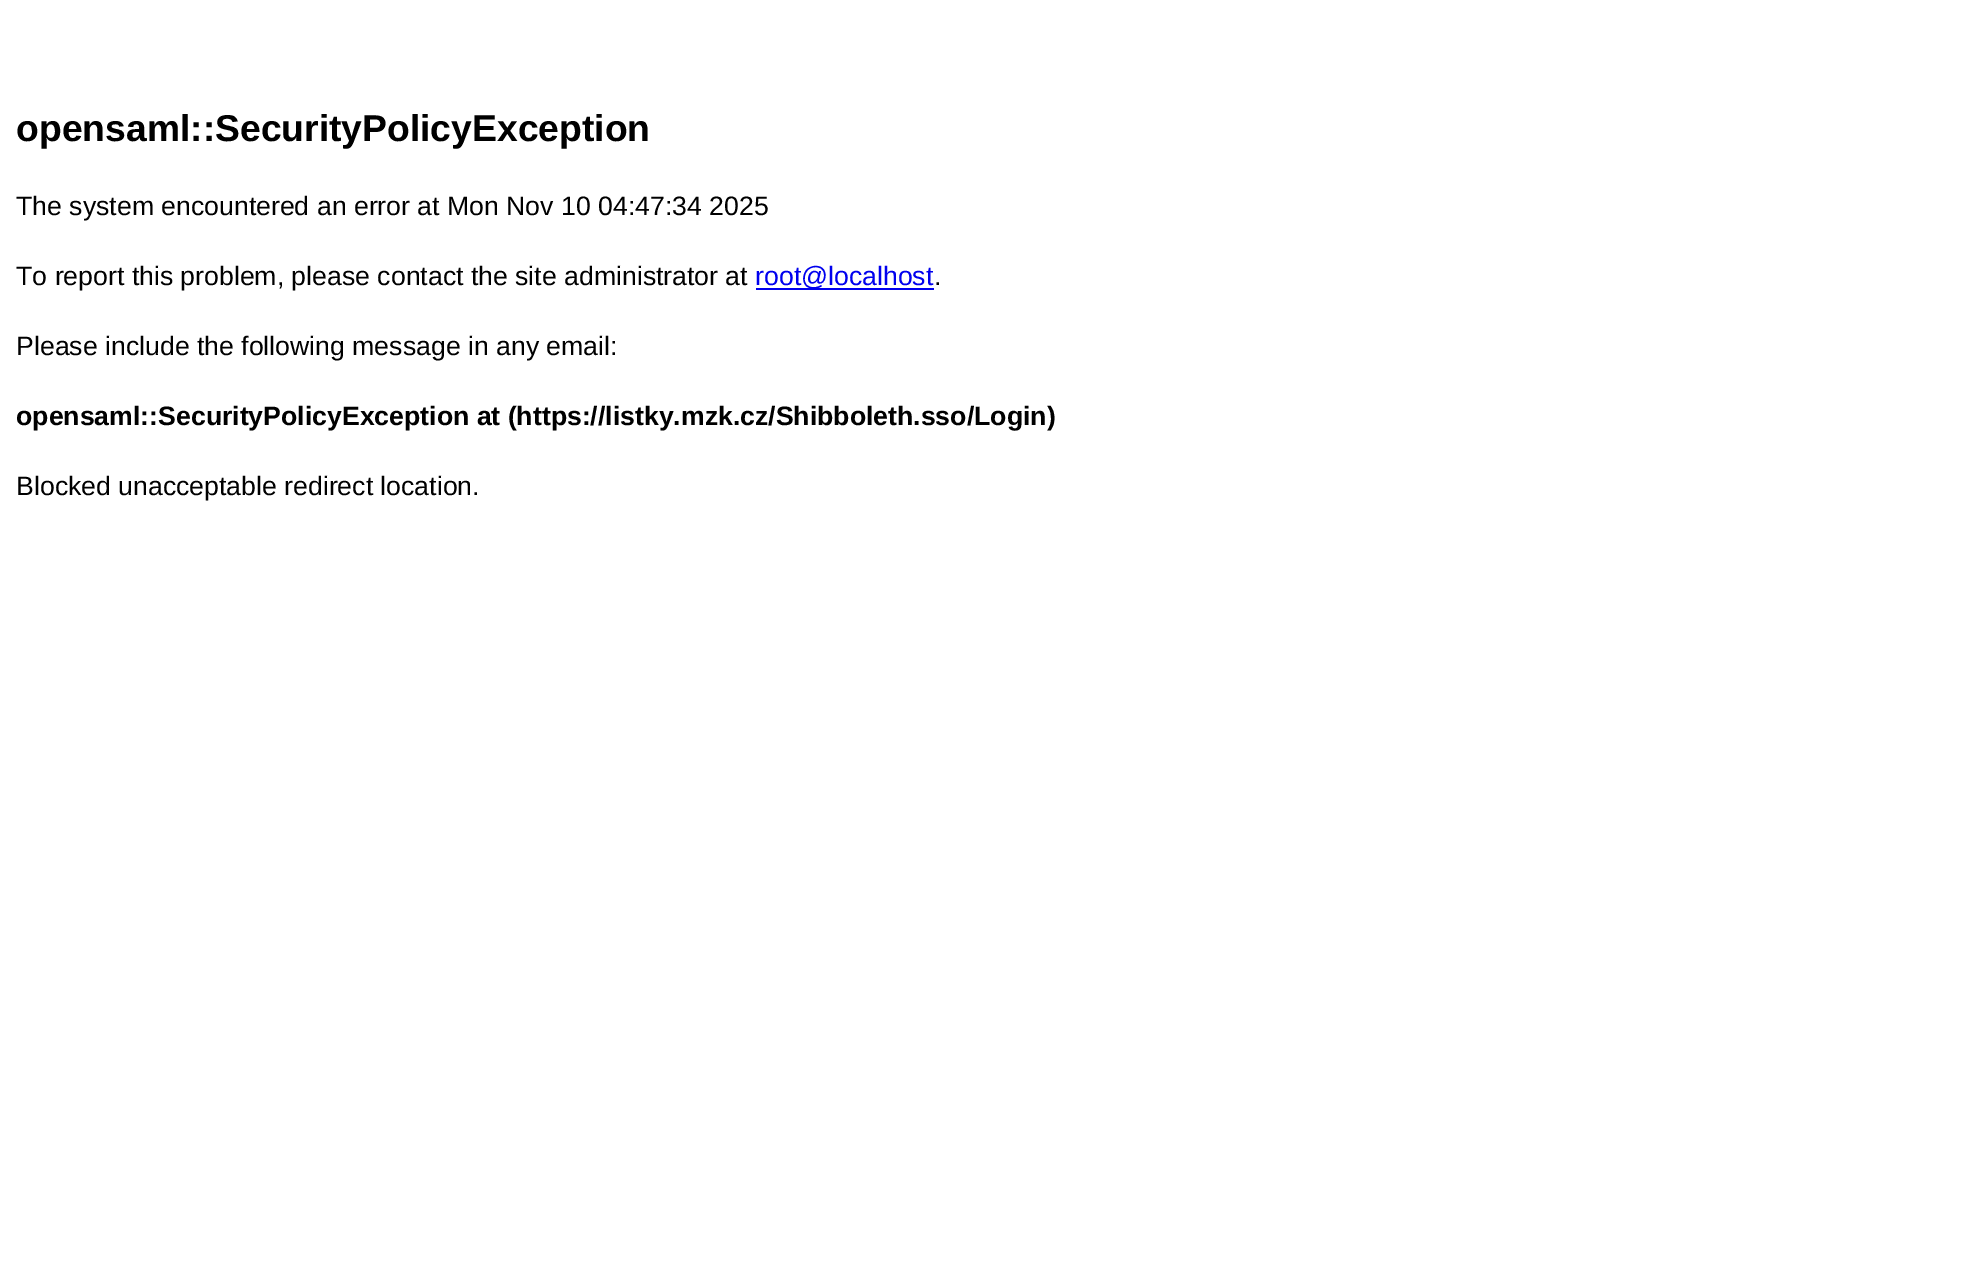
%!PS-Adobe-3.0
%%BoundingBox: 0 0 1986 1288
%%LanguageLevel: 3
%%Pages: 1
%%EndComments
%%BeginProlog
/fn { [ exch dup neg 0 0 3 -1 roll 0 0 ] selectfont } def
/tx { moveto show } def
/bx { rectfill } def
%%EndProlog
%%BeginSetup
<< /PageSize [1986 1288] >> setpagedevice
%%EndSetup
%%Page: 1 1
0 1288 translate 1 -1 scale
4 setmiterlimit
1 setgray
0 0 1986 1288 bx
/LiberationSans-Bold 37.3 fn
0 setgray
(opensaml::SecurityPolicyException) 16 141 tx
/LiberationSans-Regular 26.65 fn
(The system encountered an error at Mon Nov 10 04:47:34 2025) 16 215 tx
(To report this problem, please contact the site administrator at) 16 285 tx
0 0 0.933 setrgbcolor
756 288 178 2 bx
(root@localhost) 755 285 tx
0 setgray
(.) 934 285 tx
(Please include the following message in any email:) 16 355 tx
/LiberationSans-Bold 26.65 fn
(opensaml::SecurityPolicyException at \(https://listky.mzk.cz/Shibboleth.sso/Login\)) 16 425 tx
/LiberationSans-Regular 26.65 fn
(Blocked unacceptable redirect location.) 16 495 tx
showpage
%%EOF
